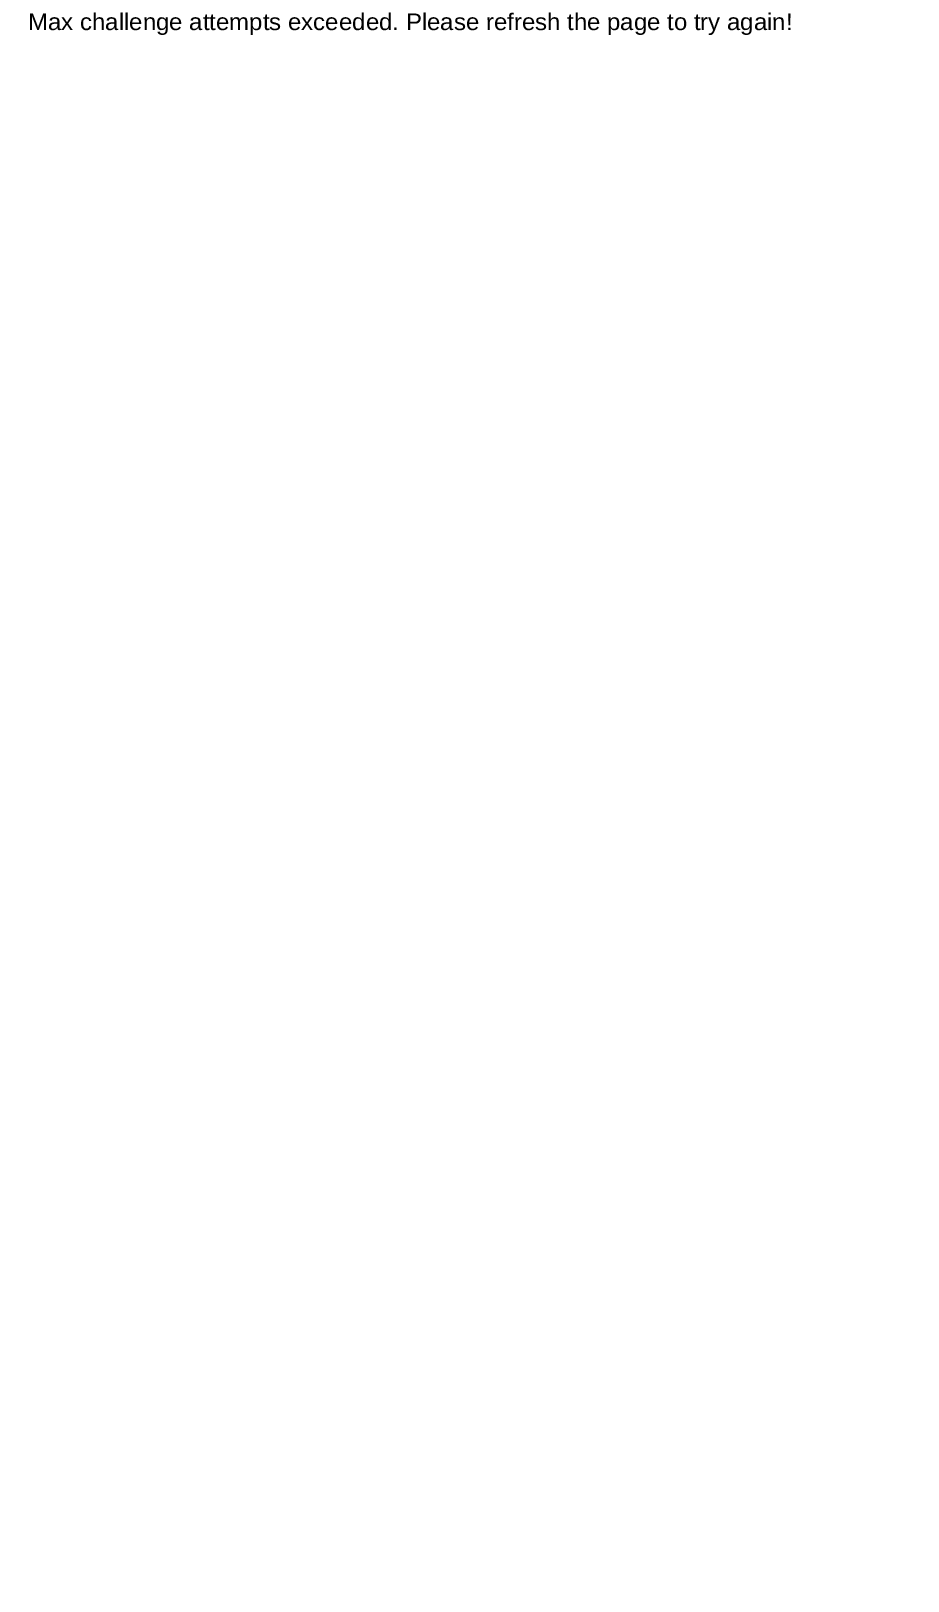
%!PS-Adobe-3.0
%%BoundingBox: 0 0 939 1612
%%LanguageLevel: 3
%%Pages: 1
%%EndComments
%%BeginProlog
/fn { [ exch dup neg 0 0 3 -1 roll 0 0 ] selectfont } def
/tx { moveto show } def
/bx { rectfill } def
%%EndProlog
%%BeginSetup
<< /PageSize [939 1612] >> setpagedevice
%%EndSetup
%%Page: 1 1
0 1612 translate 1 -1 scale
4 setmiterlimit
1 setgray
0 0 939 1612 bx
/LiberationSans-Regular 24 fn
0 setgray
(Max challenge attempts exceeded. Please refresh the page to try again!) 28 30 tx
showpage
%%EOF
